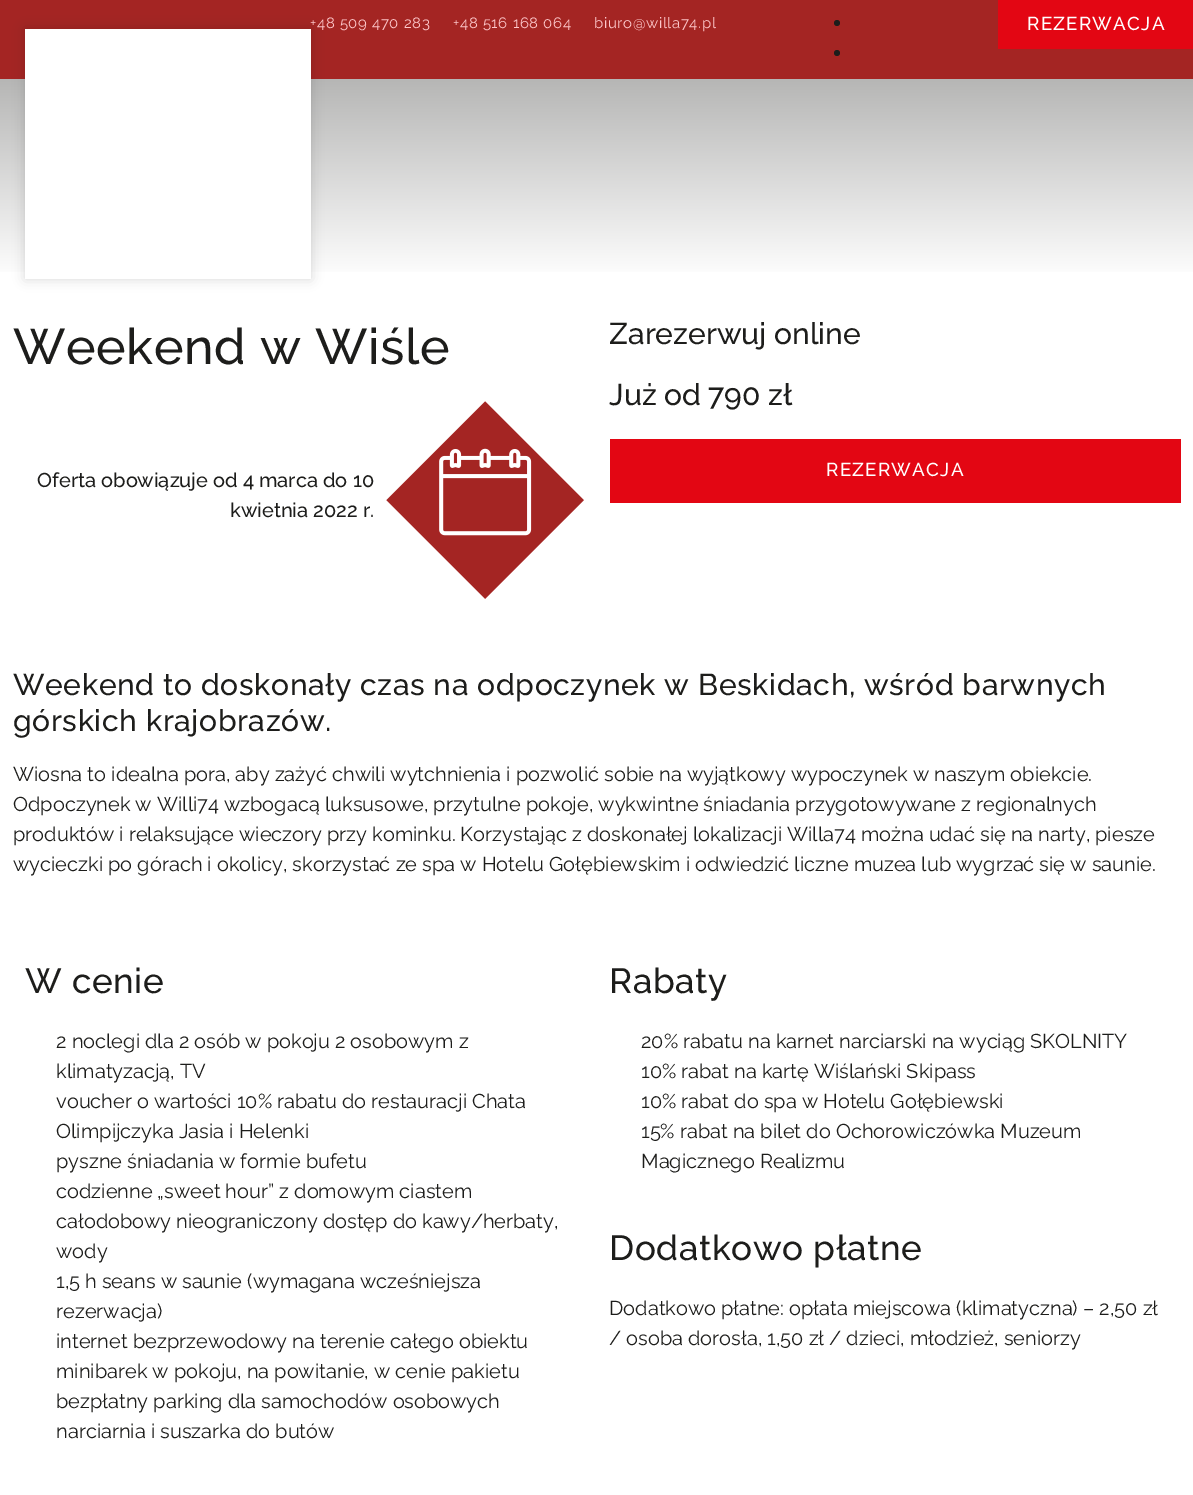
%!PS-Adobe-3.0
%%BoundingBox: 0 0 1193 1495
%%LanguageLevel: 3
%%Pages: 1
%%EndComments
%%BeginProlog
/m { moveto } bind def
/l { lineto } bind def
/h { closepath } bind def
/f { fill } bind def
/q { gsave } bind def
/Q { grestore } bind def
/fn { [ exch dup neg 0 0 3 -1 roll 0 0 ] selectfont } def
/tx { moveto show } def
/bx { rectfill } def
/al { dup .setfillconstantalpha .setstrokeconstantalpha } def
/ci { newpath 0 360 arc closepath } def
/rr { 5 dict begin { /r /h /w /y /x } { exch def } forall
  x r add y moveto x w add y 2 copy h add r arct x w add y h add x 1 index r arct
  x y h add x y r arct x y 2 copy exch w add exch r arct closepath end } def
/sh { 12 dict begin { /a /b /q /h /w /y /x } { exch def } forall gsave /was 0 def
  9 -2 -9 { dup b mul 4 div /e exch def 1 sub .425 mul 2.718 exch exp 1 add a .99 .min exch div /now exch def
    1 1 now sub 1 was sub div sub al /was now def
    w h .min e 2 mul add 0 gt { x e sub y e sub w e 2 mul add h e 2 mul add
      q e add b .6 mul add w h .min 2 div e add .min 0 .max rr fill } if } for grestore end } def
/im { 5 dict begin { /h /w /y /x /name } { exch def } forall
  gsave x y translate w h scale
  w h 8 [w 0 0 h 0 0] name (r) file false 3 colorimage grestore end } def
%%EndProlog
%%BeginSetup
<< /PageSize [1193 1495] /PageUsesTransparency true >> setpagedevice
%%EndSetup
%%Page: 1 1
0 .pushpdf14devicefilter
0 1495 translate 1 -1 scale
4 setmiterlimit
1 setgray
0 0 1193 1495 bx
q 0 79 m 1193 79 l 1193 272 l 0 272 l h clip newpath
<< /ShadingType 2 /ColorSpace /DeviceRGB /Coords [597 79 597 279] /Extend [true true] /Function << /FunctionType 2 /Domain [0 1] /C0 [0.714 0.714 0.71] /C1 [1 1 1] /N 1 >> >> shfill Q
0.643 0.145 0.137 setrgbcolor
0 0 1193 79 bx
0 setgray
25 29 286 250 0 6 0.15 sh
/Raleway-Regular 15 fn
0.992 0.78 0.792 setrgbcolor
310 28 m 0.62 0 (+48 509 470 283) ashow
1 setgray
25 29 286 250 bx
0.992 0.78 0.792 setrgbcolor
453 28 m 0.62 0 (+48 516 168 064) ashow
594 28 m 0.62 0 (biuro@willa74.pl) ashow
0.114 0.114 0.106 setrgbcolor
837 23 3 ci f
837 53 3 ci f
0.89 0.024 0.075 setrgbcolor
998 0 195 49 bx
/Raleway-Medium 18.75 fn
1 setgray
1027 30 m 1.25 0 (REZERWACJA) ashow
/Raleway-Medium 50 fn
0.114 0.114 0.106 setrgbcolor
13 364 m 0.62 0 (Weekend w Wiśle) ashow
/Raleway-Medium 20 fn
(Oferta obowiązuje od 4 marca do 10) 37 487 tx
(kwietnia 2022 r.) 230 517 tx
(image0.raw) 386 401 198 198 im
/Raleway-Medium 30 fn
(Zarezerwuj online) 609 344 tx
(Już od 790 zł) 609 405 tx
0.89 0.024 0.075 setrgbcolor
610 439 571 64 bx
/Raleway-Medium 18.75 fn
1 setgray
826 476 m 1.25 0 (REZERWACJA) ashow
/Raleway-Medium 30 fn
0.114 0.114 0.106 setrgbcolor
13 695 m 0.62 0 (Weekend to doskonały czas na odpoczynek w Beskidach, wśród barwnych) ashow
13 731 m 0.62 0 (górskich krajobrazów.) ashow
/Raleway-Regular 20 fn
(Wiosna to idealna pora, aby zażyć chwili wytchnienia i pozwolić sobie na wyjątkowy wypoczynek w naszym obiekcie.) 13 781 tx
(Odpoczynek w Willi74 wzbogacą luksusowe, przytulne pokoje, wykwintne śniadania przygotowywane z regionalnych) 13 811 tx
(produktów i relaksujące wieczory przy kominku. Korzystając z doskonałej lokalizacji Willa74 można udać się na narty, piesze) 13 841 tx
(wycieczki po górach i okolicy, skorzystać ze spa w Hotelu Gołębiewskim i odwiedzić liczne muzea lub wygrzać się w saunie.) 13 871 tx
/Raleway-Medium 35 fn
25 993 m 0.62 0 (W cenie) ashow
/Raleway-Regular 20 fn
(2 noclegi dla 2 osób w pokoju 2 osobowym z) 56 1048 tx
(klimatyzacją, TV) 56 1078 tx
(voucher o wartości 10% rabatu do restauracji Chata) 56 1108 tx
(Olimpijczyka Jasia i Helenki) 56 1138 tx
(pyszne śniadania w formie bufetu) 56 1168 tx
(codzienne „sweet hour” z domowym ciastem) 56 1198 tx
(całodobowy nieograniczony dostęp do kawy/herbaty,) 56 1228 tx
(wody) 56 1258 tx
(1,5 h seans w saunie \(wymagana wcześniejsza) 56 1288 tx
(rezerwacja\)) 56 1318 tx
(internet bezprzewodowy na terenie całego obiektu) 56 1348 tx
(minibarek w pokoju, na powitanie, w cenie pakietu) 56 1378 tx
(bezpłatny parking dla samochodów osobowych) 56 1408 tx
(narciarnia i suszarka do butów) 56 1438 tx
/Raleway-Medium 35 fn
609 993 m 0.62 0 (Rabaty) ashow
/Raleway-Regular 20 fn
(20% rabatu na karnet narciarski na wyciąg SKOLNITY) 641 1048 tx
(10% rabat na kartę Wiślański Skipass) 641 1078 tx
(10% rabat do spa w Hotelu Gołębiewski) 641 1108 tx
(15% rabat na bilet do Ochorowiczówka Muzeum) 641 1138 tx
(Magicznego Realizmu) 641 1168 tx
/Raleway-Medium 35 fn
609 1260 m 0.62 0 (Dodatkowo płatne) ashow
/Raleway-Regular 20 fn
(Dodatkowo płatne: opłata miejscowa \(klimatyczna\) – 2,50 zł) 609 1315 tx
(/ osoba dorosła, 1,50 zł / dzieci, młodzież, seniorzy) 609 1345 tx
.poppdf14devicefilter showpage
%%EOF
